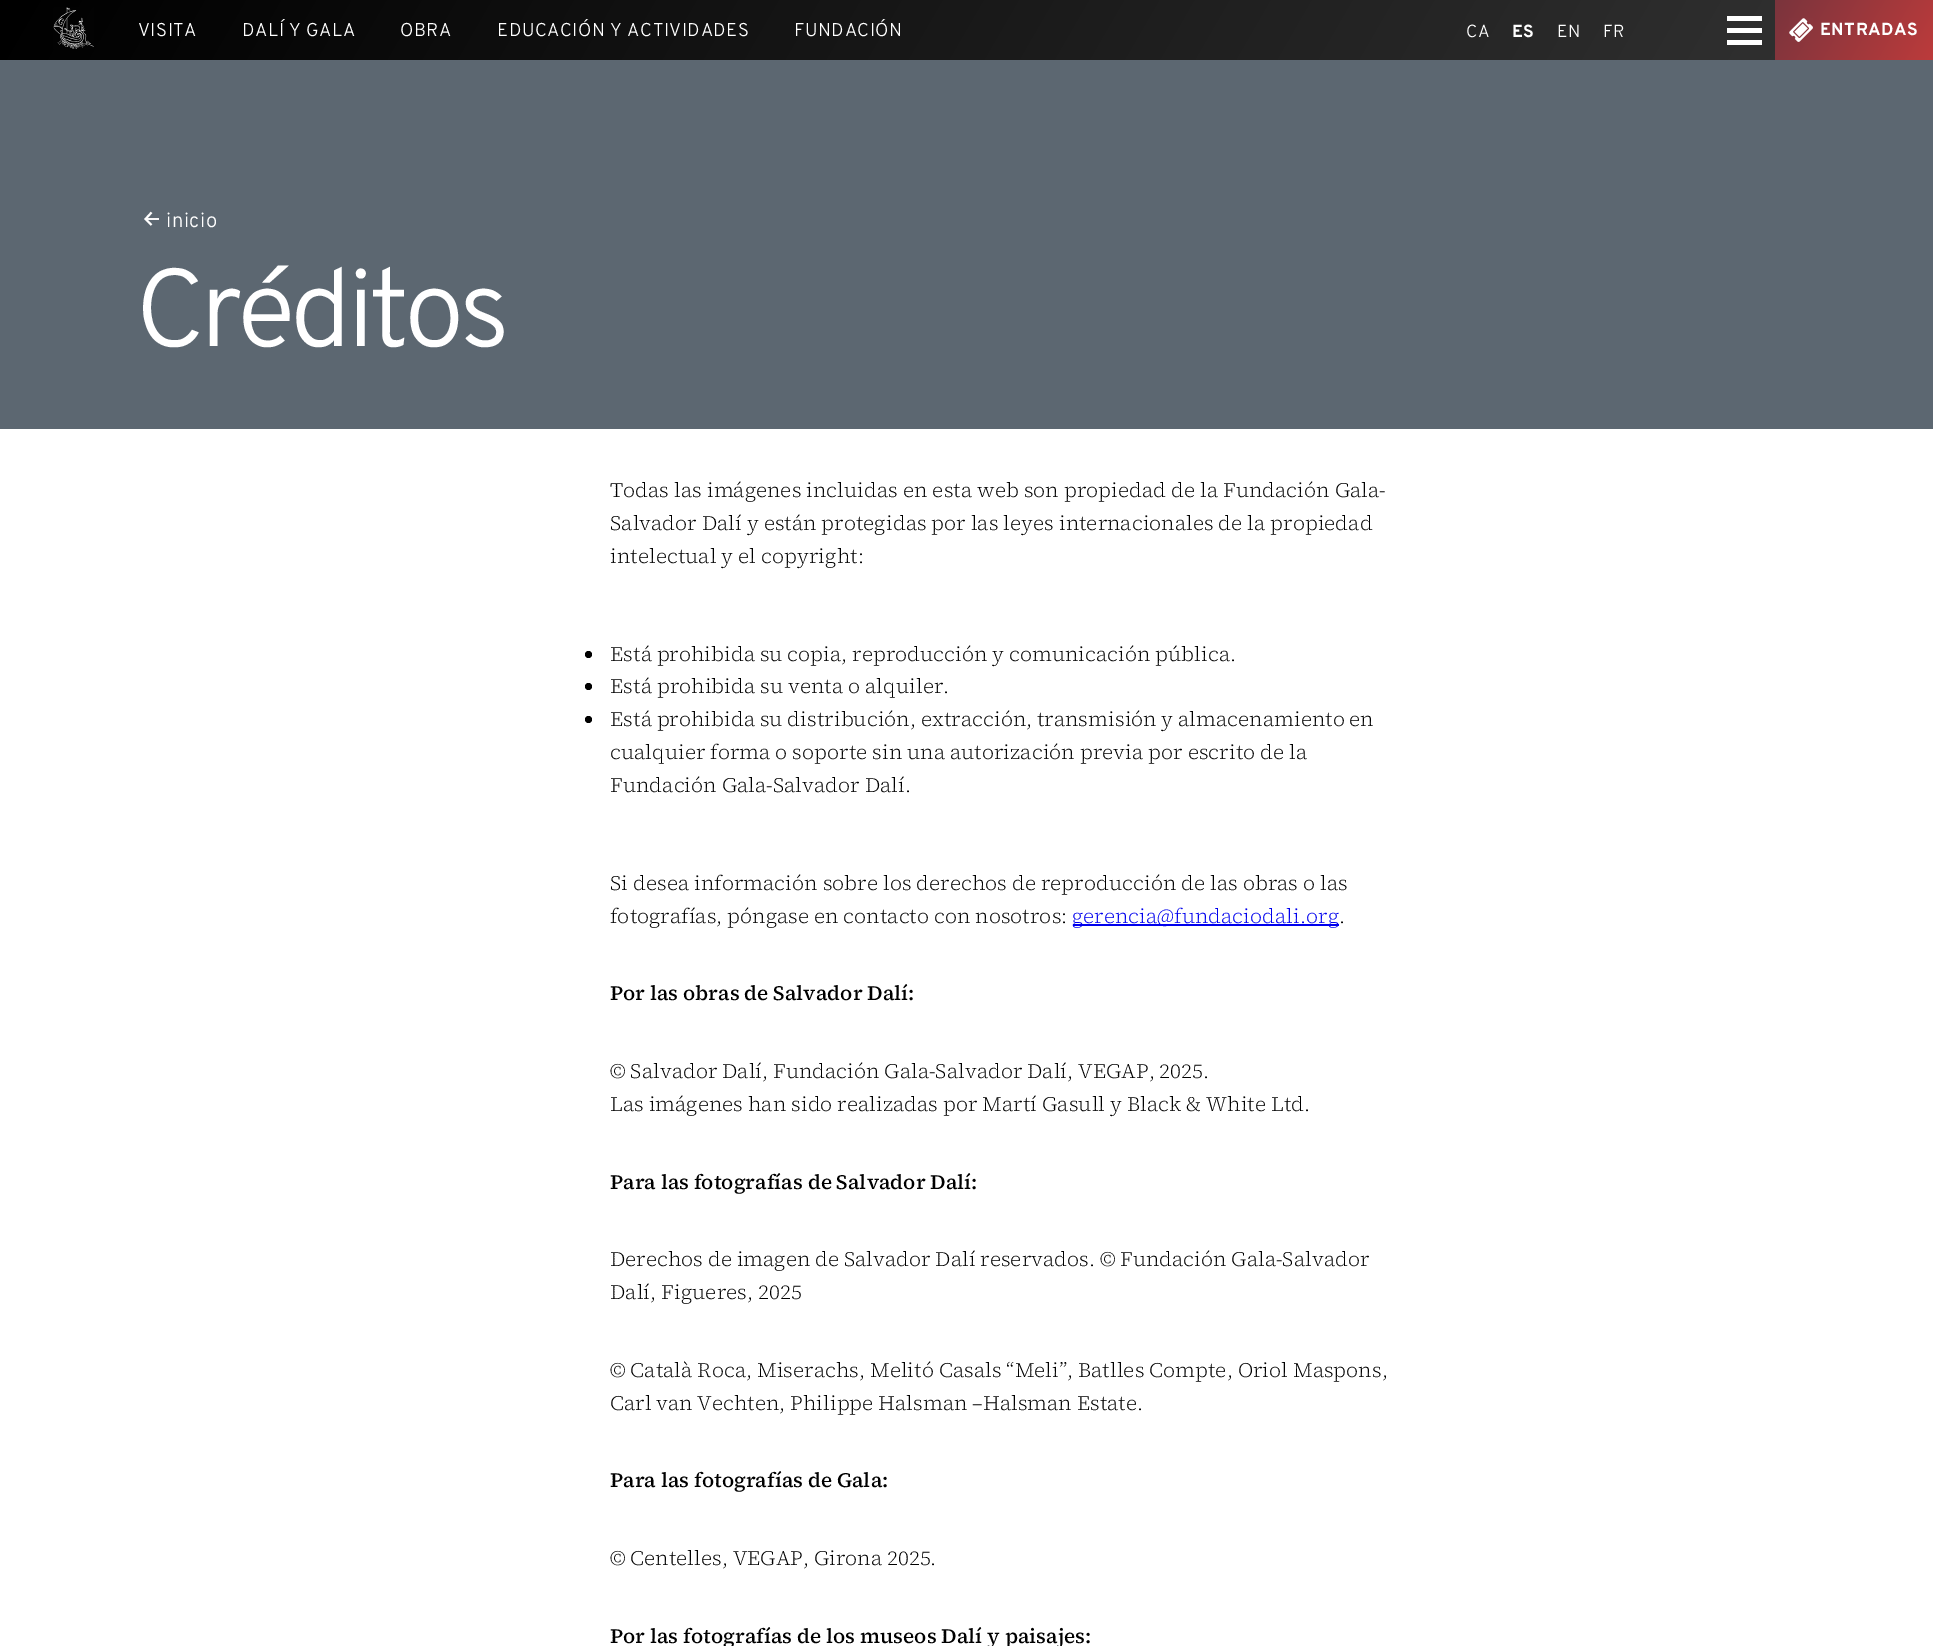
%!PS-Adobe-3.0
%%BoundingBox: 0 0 1933 1646
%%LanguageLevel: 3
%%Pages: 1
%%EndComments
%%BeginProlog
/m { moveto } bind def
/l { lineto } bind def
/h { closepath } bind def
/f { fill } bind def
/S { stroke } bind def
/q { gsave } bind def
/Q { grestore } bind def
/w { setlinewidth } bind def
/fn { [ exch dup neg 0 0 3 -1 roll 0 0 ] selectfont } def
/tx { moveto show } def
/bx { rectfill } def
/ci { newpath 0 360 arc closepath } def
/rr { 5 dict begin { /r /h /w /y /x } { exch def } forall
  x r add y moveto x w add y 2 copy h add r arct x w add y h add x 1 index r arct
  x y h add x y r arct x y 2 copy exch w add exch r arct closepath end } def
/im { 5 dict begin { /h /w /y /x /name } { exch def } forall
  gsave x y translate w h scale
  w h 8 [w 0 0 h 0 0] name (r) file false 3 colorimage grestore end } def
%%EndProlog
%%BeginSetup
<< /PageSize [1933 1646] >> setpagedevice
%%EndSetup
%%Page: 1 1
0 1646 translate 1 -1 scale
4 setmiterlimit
1 setgray
0 0 1933 1646 bx
0.361 0.404 0.443 setrgbcolor
0 60 1933 369 bx
q 0 0 m 1933 0 l 1933 60 l 0 60 l h clip newpath
<< /ShadingType 2 /ColorSpace /DeviceRGB /Coords [229 -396 1705 456] /Extend [true true] /Function << /FunctionType 2 /Domain [0 1] /C0 [0 0 0] /C1 [0.2 0.2 0.2] /N 1 >> >> shfill Q
(image0.raw) 53 7 41 42 im
/Overpass-Light 18.5 fn
1 setgray
138 36 m 0.55 0 (VISITA) ashow
242 36 m 0.55 0 (DALÍ Y GALA) ashow
400 36 m 0.55 0 (OBRA) ashow
497 36 m 0.55 0 (EDUCACIÓN Y ACTIVIDADES) ashow
794 36 m 0.55 0 (FUNDACIÓN) ashow
/Overpass-Light 17.5 fn
1466 37 m 0.5 0 (CA) ashow
/Overpass-Bold 17.5 fn
1512 37 m 0.5 0 (ES) ashow
/Overpass-Light 17.5 fn
1557 37 m 0.5 0 (EN) ashow
1603 37 m 0.5 0 (FR) ashow
1727 28 35 5 bx
1727 16 35 5 bx
1727 40 35 5 bx
q 1775 0 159 60 2.5 rr clip newpath
<< /ShadingType 2 /ColorSpace /DeviceRGB /Coords [1782 -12 1927 72] /Extend [true true] /Function << /FunctionType 2 /Domain [0 1] /C0 [0.478 0.204 0.239] /C1 [0.737 0.231 0.231] /N 1 >> >> shfill Q
(image1.raw) 1789 18 24 24 im
/Overpass-Bold 17.5 fn
1820 35 m 0.5 0 (ENTRADAS) ashow
0.969 0.969 0.973 setrgbcolor
146 218 13 2 bx
1 setgray
1.9 w
151.5 225 m 145.5 219 l 151.5 212.5 l S
/Overpass-Light 20.5 fn
166 227 m 0.5 0 (inicio) ashow
/Overpass-Light 110 fn
135 346 m -5.5 0 (Créditos) ashow
/SourceSerif4-Light 20.5 fn
0 setgray
(Todas las imágenes incluidas en esta web son propiedad de la Fundación Gala-) 610 497 tx
610 530 m -0.1 0 32 (Salvador Dalí y están protegidas por las leyes internacionales de la propiedad) widthshow
(intelectual y el copyright:) 610 563 tx
588.5 654.5 3.5 ci f
610 661 m -0.25 0 32 (Está prohibida su copia, reproducción y comunicación pública.) widthshow
588.5 686.5 3.5 ci f
(Está prohibida su venta o alquiler.) 610 693 tx
588.5 719.5 3.5 ci f
610 726 m -0.25 0 32 (Está prohibida su distribución, extracción, transmisión y almacenamiento en) widthshow
(cualquier forma o soporte sin una autorización previa por escrito de la) 610 759 tx
(Fundación Gala-Salvador Dalí.) 610 792 tx
(Si desea información sobre los derechos de reproducción de las obras o las) 610 890 tx
610 923 m -0.1 0 32 (fotografías, póngase en contacto con nosotros:) widthshow
0 0 0.933 setrgbcolor
1073 924 266 2 bx
(gerencia@fundaciodali.org) 1072 923 tx
0 setgray
(.) 1339 923 tx
/SourceSerif4-Medium 20.5 fn
(Por las obras de Salvador Dalí:) 610 1000 tx
/SourceSerif4-Light 20.5 fn
610 1078 m -0.25 0 32 (© Salvador Dalí, Fundación Gala-Salvador Dalí, VEGAP, 2025.) widthshow
(Las imágenes han sido realizadas por Martí Gasull y Black & White Ltd.) 610 1111 tx
/SourceSerif4-Medium 20.5 fn
610 1189 m -0.1 0 32 (Para las fotografías de Salvador Dalí:) widthshow
/SourceSerif4-Light 20.5 fn
610 1266 m -0.25 0 32 (Derechos de imagen de Salvador Dalí reservados. © Fundación Gala-Salvador) widthshow
(Dalí, Figueres, 2025) 610 1299 tx
610 1377 m -0.1 0 32 (© Català Roca, Miserachs, Melitó Casals “Meli”, Batlles Compte, Oriol Maspons,) widthshow
610 1410 m -0.25 0 32 (Carl van Vechten, Philippe Halsman –Halsman Estate.) widthshow
/SourceSerif4-Medium 20.5 fn
(Para las fotografías de Gala:) 610 1487 tx
/SourceSerif4-Light 20.5 fn
610 1565 m -0.25 0 32 (© Centelles, VEGAP, Girona 2025.) widthshow
/SourceSerif4-Medium 20.5 fn
(Por las fotografías de los museos Dalí y paisajes:) 610 1643 tx
showpage
%%EOF
